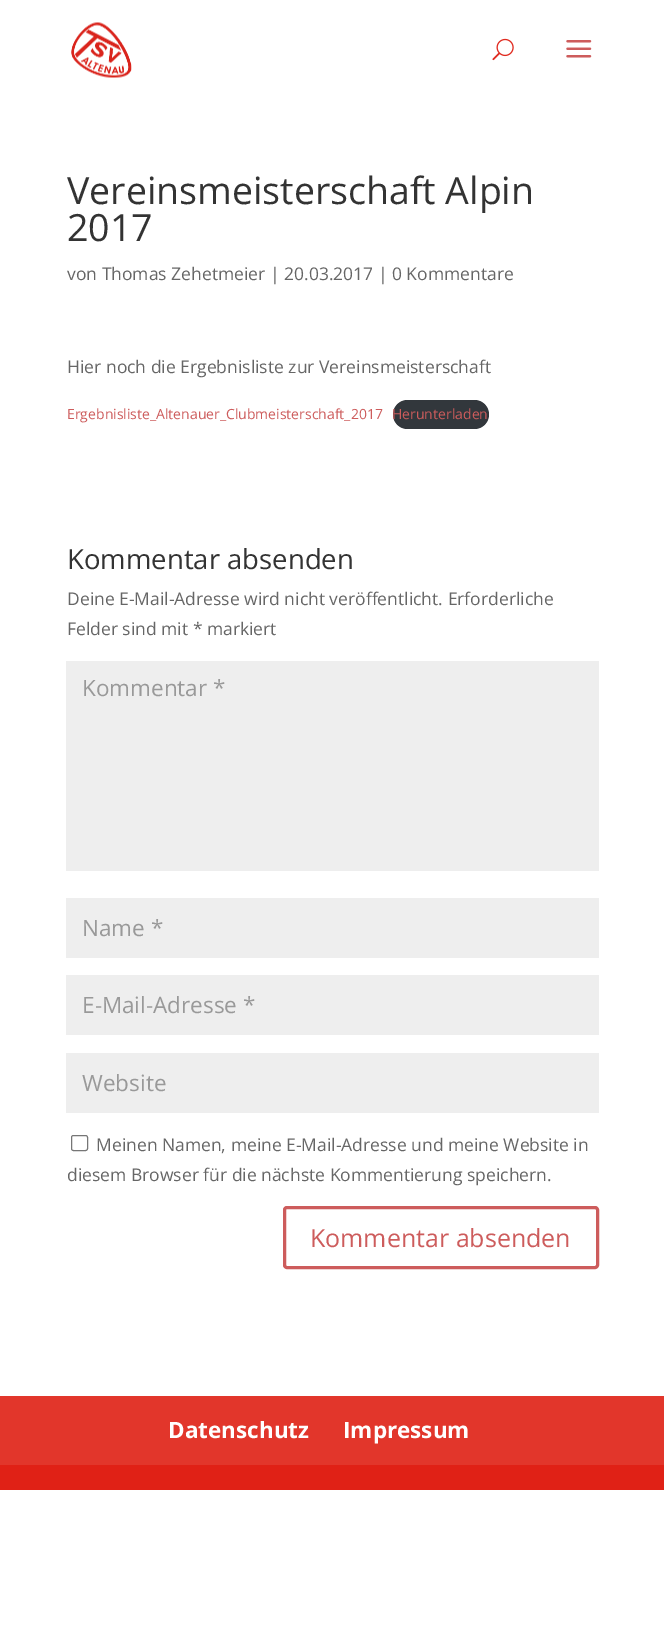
%!PS-Adobe-3.0
%%BoundingBox: 0 0 664 1633
%%LanguageLevel: 3
%%Pages: 1
%%EndComments
%%BeginProlog
/f { fill } bind def
/S { stroke } bind def
/w { setlinewidth } bind def
/fn { [ exch dup neg 0 0 3 -1 roll 0 0 ] selectfont } def
/tx { moveto show } def
/bx { rectfill } def
/rr { 5 dict begin { /r /h /w /y /x } { exch def } forall
  x r add y moveto x w add y 2 copy h add r arct x w add y h add x 1 index r arct
  x y h add x y r arct x y 2 copy exch w add exch r arct closepath end } def
/im { 5 dict begin { /h /w /y /x /name } { exch def } forall
  gsave x y translate w h scale
  w h 8 [w 0 0 h 0 0] name (r) file false 3 colorimage grestore end } def
%%EndProlog
%%BeginSetup
<< /PageSize [664 1633] >> setpagedevice
%%EndSetup
%%Page: 1 1
0 1633 translate 1 -1 scale
4 setmiterlimit
1 setgray
0 0 664 1633 bx
(image0.raw) 71 22 61 56 im
(image1.raw) 492 38 22 23 im
(image2.raw) 566 40 26 18 im
/OpenSans-Regular 37.5 fn
0.2 setgray
(Vereinsmeisterschaft Alpin) 67 204 tx
(2017) 67 241 tx
/OpenSans-Regular 17.5 fn
0.4 setgray
(von Thomas Zehetmeier | 20.03.2017 | 0 Kommentare) 67 280 tx
(Hier noch die Ergebnisliste zur Vereinsmeisterschaft) 67 373 tx
/OpenSans-Regular 14 fn
0.804 0.361 0.361 setrgbcolor
(Ergebnisliste_Altenauer_Clubmeisterschaft_2017) 67 419 tx
0.196 0.216 0.235 setrgbcolor
393 400 96 29 14.5 rr f
0.804 0.361 0.361 setrgbcolor
(Herunterladen) 392 419 tx
/OpenSans-Regular 27.5 fn
0.2 setgray
(Kommentar absenden) 67 569 tx
/OpenSans-Regular 17.5 fn
0.4 setgray
(Deine E-Mail-Adresse wird nicht veröffentlicht. Erforderliche) 67 605 tx
(Felder sind mit * markiert) 67 635 tx
0.933 setgray
66 661 533 210 bx
/OpenSans-Regular 22.5 fn
0.6 setgray
(Kommentar *) 82 696 tx
0.933 setgray
66 898 533 60 bx
0.6 setgray
(Name *) 82 936 tx
0.933 setgray
66 975 533 60 bx
0.6 setgray
(E-Mail-Adresse *) 82 1013 tx
0.933 setgray
66 1053 533 60 bx
0.6 setgray
(Website) 82 1091 tx
0.463 setgray
71.5 1135.5 16 15 2 rr S
/OpenSans-Regular 17.5 fn
0.4 setgray
(Meinen Namen, meine E-Mail-Adresse und meine Website in) 96 1151 tx
(diesem Browser für die nächste Kommentierung speichern.) 67 1181 tx
0.804 0.361 0.361 setrgbcolor
3 w
284.5 1207.5 313 60 2.5 rr S
/OpenSans-Regular 25 fn
(Kommentar absenden) 310 1247 tx
0.886 0.212 0.169 setrgbcolor
0 1396 664 69 bx
/OpenSans-Bold 22.5 fn
1 setgray
(Datenschutz) 168 1438 tx
(Impressum) 343 1438 tx
0.878 0.129 0.086 setrgbcolor
0 1465 664 25 bx
showpage
%%EOF
